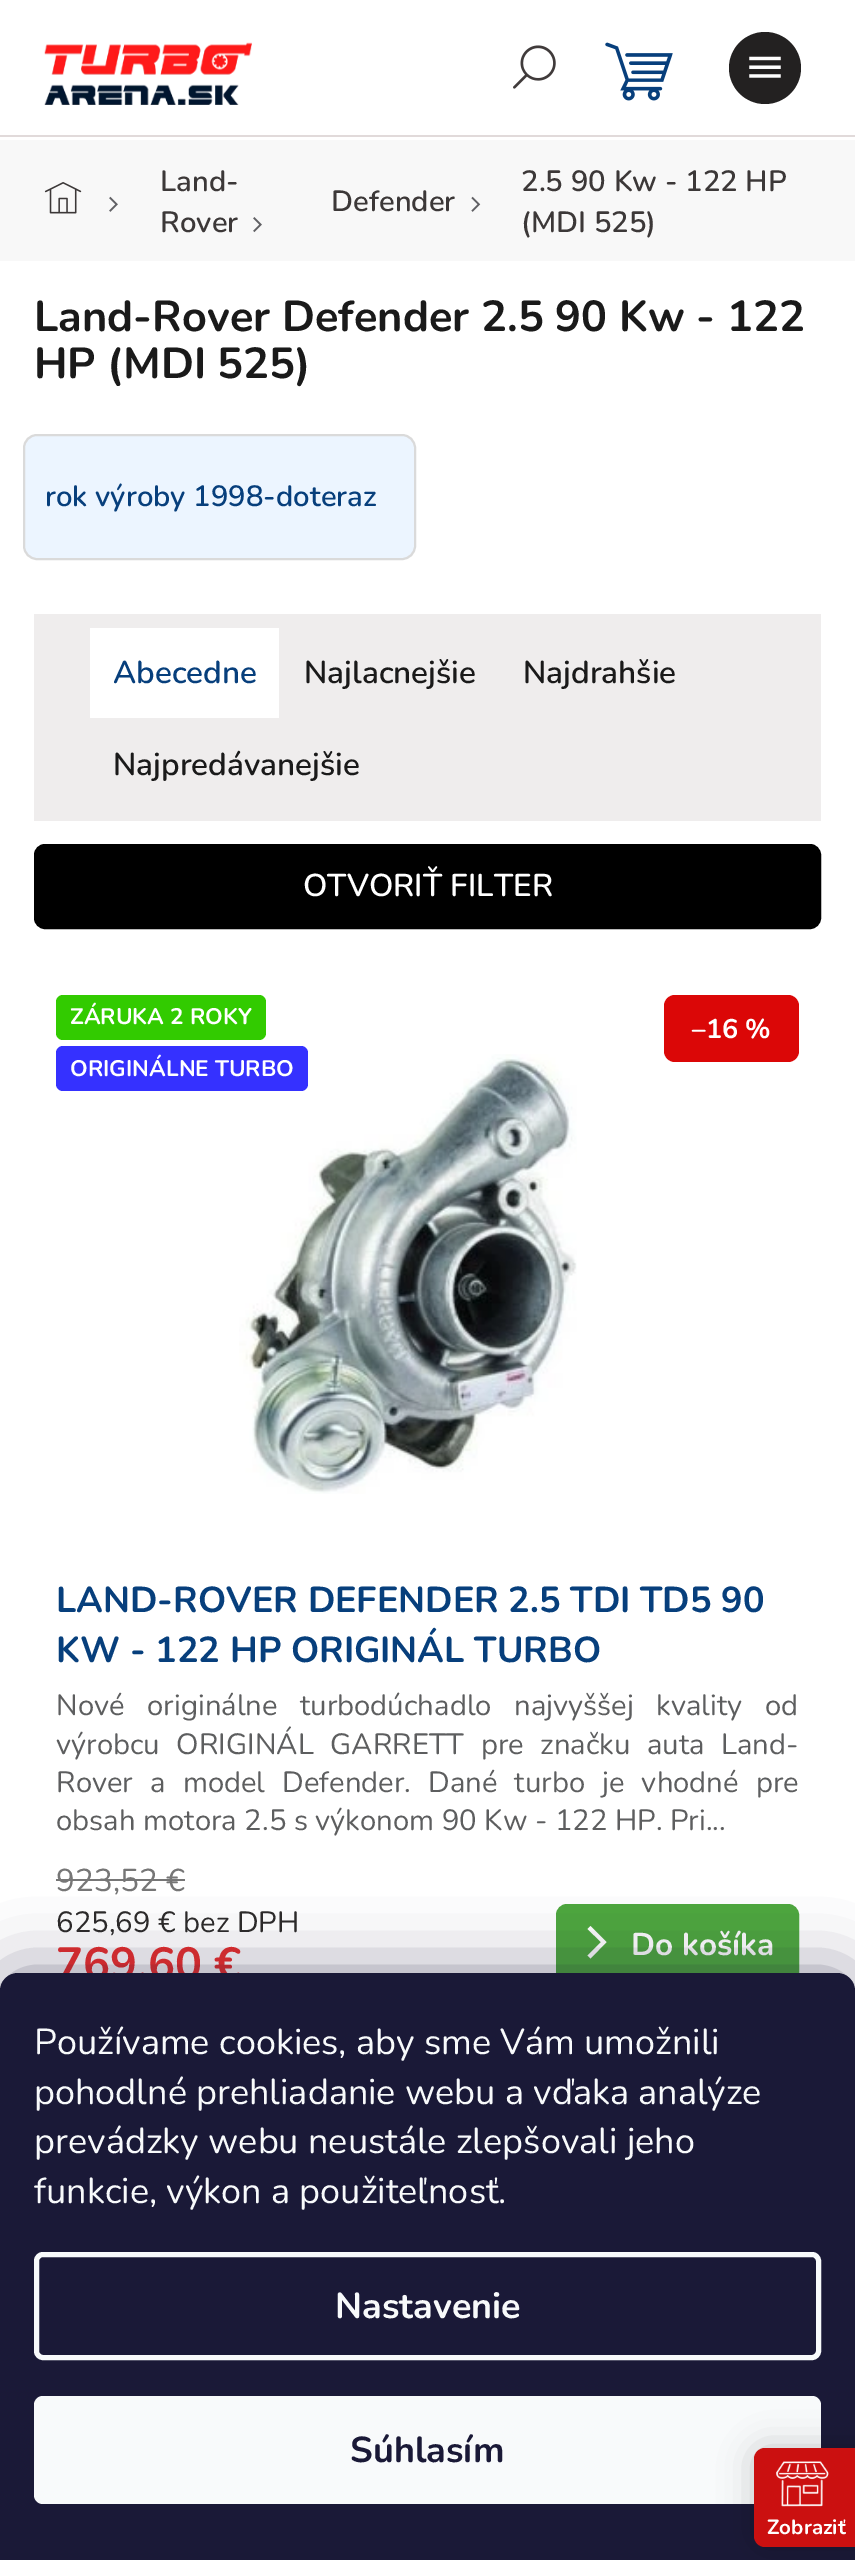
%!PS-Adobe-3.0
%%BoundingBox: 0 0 855 2560
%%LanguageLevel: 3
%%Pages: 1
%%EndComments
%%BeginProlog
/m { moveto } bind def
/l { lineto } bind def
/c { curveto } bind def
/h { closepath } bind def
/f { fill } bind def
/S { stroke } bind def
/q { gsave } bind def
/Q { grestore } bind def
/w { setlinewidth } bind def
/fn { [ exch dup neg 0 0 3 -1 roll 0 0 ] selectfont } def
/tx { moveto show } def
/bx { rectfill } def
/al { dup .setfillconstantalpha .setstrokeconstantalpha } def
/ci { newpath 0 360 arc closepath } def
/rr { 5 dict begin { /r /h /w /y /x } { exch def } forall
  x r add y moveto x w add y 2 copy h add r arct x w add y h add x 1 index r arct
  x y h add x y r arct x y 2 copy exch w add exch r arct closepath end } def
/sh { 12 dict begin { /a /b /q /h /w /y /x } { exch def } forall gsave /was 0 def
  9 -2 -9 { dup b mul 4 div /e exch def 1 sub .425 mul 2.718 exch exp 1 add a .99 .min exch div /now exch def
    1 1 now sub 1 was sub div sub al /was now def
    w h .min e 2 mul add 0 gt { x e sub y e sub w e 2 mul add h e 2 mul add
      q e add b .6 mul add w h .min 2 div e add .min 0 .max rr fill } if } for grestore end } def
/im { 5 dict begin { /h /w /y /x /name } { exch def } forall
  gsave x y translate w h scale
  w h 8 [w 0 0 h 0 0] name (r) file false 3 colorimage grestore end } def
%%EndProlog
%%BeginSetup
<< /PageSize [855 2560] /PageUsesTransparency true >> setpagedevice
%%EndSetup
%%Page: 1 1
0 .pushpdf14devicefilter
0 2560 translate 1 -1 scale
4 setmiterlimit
1 setgray
0 0 855 2560 bx
0.882 0.855 0.855 setrgbcolor
0 135 855 2 bx
(image0.raw) 513 45 43 44 im
0.137 0.129 0.129 setrgbcolor
765 68 36 ci f
(image1.raw) 749 56 32 22 im
(image2.raw) 44 42 208 63 im
(image3.raw) 605 42 68 59 im
0.973 setgray
0 140 855 121 bx
(image4.raw) 44 182 38 32 im
(image5.raw) 109 196 9 16 im
/Nunito-SemiBold 29.25 fn
0.235 0.22 0.22 setrgbcolor
(Land-) 160 191 tx
(Rover) 160 232 tx
(image6.raw) 253 217 9 16 im
(Defender) 331 211 tx
(image7.raw) 471 196 10 16 im
(2.5 90 Kw - 122 HP) 521 191 tx
(\(MDI 525\)) 521 232 tx
/Nunito-Bold 43.3 fn
0.102 setgray
(Land-Rover Defender 2.5 90 Kw - 122) 34 331 tx
(HP \(MDI 525\)) 34 378 tx
0.925 0.961 1 setrgbcolor
24 435 391 124 13 rr q f Q
0.855 setgray
2 w
S
/Nunito-SemiBold 29.25 fn
0.027 0.247 0.486 setrgbcolor
(rok výroby 1998-doteraz) 45 506 tx
0.937 0.929 0.929 setrgbcolor
34 614 787 207 bx
1 setgray
90 628 189 90 bx
/Nunito-SemiBold 31.5 fn
0.027 0.247 0.486 setrgbcolor
(Abecedne) 113 683 tx
0.102 setgray
(Najlacnejšie) 304 683 tx
(Najdrahšie) 523 683 tx
(Najpredávanejšie) 113 775 tx
0 setgray
35 845 785 83 10 rr q f Q
S
1 setgray
(OTVORIŤ FILTER) 303 896 tx
0.196 0.796 0 setrgbcolor
56 995 210 45 7 rr f
/Nunito-Bold 22.5 fn
1 setgray
(ZÁRUKA 2 ROKY) 70 1024 tx
(image8.raw) 239 1054 338 440 im
0.208 0.192 1 setrgbcolor
56 1046 252 45 7 rr f
1 setgray
(ORIGINÁLNE TURBO) 70 1076 tx
0.859 0.027 0.027 setrgbcolor
664 995 135 67 11 rr f
/Nunito-Bold 27 fn
1 setgray
(–16 %) 692 1038 tx
/Nunito-Bold 36 fn
0.027 0.247 0.486 setrgbcolor
(LAND-ROVER DEFENDER 2.5 TDI TD5 90) 56 1612 tx
(KW - 122 HP ORIGINÁL TURBO) 56 1662 tx
/Nunito-Regular 29.25 fn
0.365 0.369 0.373 setrgbcolor
56 1715 m 15 0 32 (Nové originálne turbodúchadlo najvyššej kvality od) widthshow
56 1754 m 9 0 32 (výrobcu ORIGINÁL GARRETT pre značku auta Land-) widthshow
56 1792 m 9.5 0 32 (Rover a model Defender. Dané turbo je vhodné pre) widthshow
(obsah motora 2.5 s výkonom 90 Kw - 122 HP. Pri...) 56 1830 tx
/Nunito-Regular 31.5 fn
0.463 setgray
(923,52 €) 56 1891 tx
56 1879 129 2 bx
/Nunito-Regular 29.25 fn
0.173 0.165 0.165 setrgbcolor
(625,69 € bez DPH) 56 1932 tx
/Nunito-Bold 45 fn
0.925 0.18 0.18 setrgbcolor
(769,60 €) 56 1979 tx
0.306 0.655 0.243 setrgbcolor
557 1905 241 83 10 rr q f Q
S
1 setgray
590.5 1958.5 m 587.5 1955.5 l 601 1942 l 587.5 1929 l 590.5 1926 l 606.5 1942 l h f
/Nunito-Bold 31.5 fn
(Do košíka) 631 1955 tx
0.106 0.098 0.224 setrgbcolor
0 1973 855 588 18 34 0.5 sh
0.102 0.098 0.216 setrgbcolor
18 1973 m 837 1973 l 847 1973 855 1981 855 1991 c 855 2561 l 0 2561 l 0 1991 l 0 1981 8 1973 18 1973 c h f
/Nunito-Regular 36 fn
0.973 0.98 0.984 setrgbcolor
(Používame cookies, aby sme Vám umožnili) 34 2054 tx
(pohodlné prehliadanie webu a vďaka analýze) 34 2104 tx
(prevádzky webu neustále zlepšovali jeho) 34 2153 tx
(funkcie, výkon a použiteľnosť.) 34 2203 tx
5 w
36.5 2254.5 782 103 6.5 rr S
/Nunito-Bold 36 fn
(Nastavenie) 335 2318 tx
34 2396 787 108 9 rr f
0.102 0.098 0.216 setrgbcolor
(Súhlasím) 350 2462 tx
0 setgray
754 2448 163 99 11 17 0.2 sh
0.796 0.063 0.063 setrgbcolor
754 2448 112 99 11 rr f
(image9.raw) 776 2461 53 46 im
/Nunito-Bold 20.5 fn
1 setgray
(Zobraziť) 767 2534 tx
.poppdf14devicefilter showpage
%%EOF
